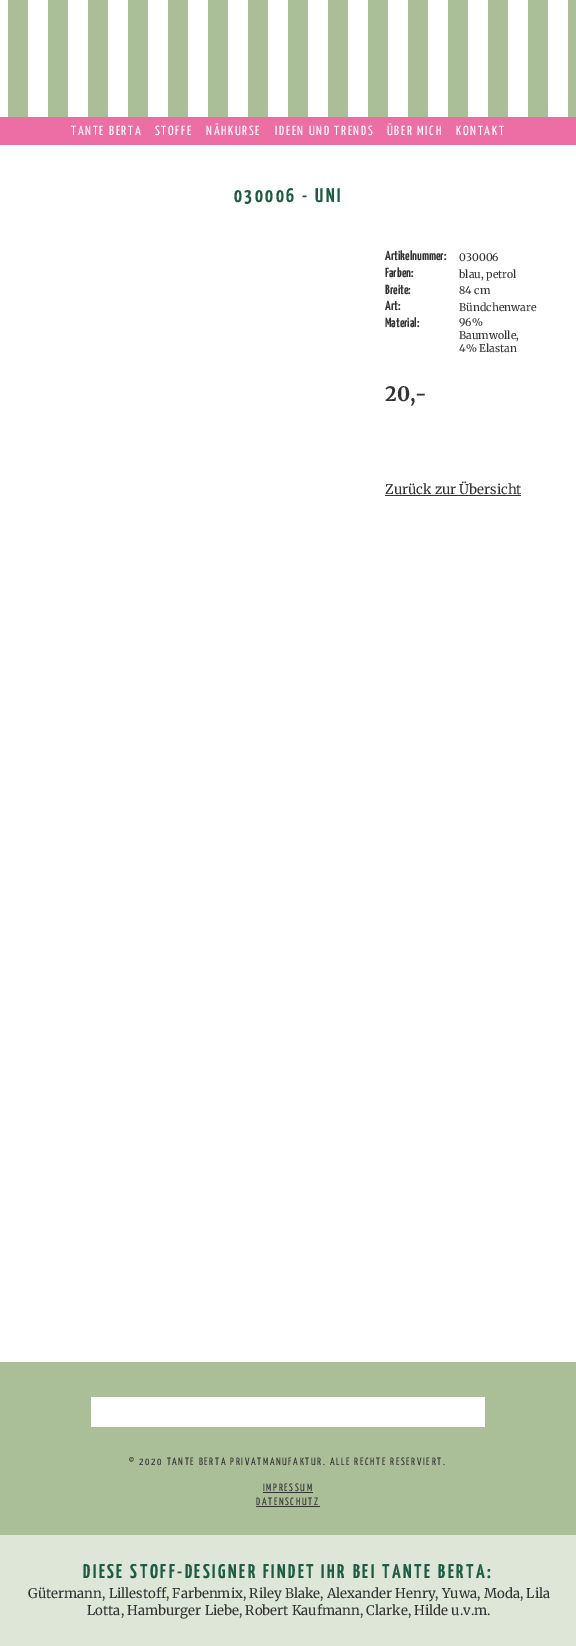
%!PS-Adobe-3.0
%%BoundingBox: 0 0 576 1646
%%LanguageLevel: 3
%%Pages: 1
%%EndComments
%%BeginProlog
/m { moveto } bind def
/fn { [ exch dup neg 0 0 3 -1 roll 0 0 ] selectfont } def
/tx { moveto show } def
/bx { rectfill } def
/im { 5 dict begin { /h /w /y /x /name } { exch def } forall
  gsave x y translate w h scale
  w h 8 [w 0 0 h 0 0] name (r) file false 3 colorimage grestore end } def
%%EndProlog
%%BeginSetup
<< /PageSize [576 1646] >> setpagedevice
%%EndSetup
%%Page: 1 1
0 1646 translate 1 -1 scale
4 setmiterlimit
1 setgray
0 0 576 1646 bx
0.667 0.749 0.596 setrgbcolor
568 0 8 117 bx
(image0.raw) 0 0 568 117 im
0.925 0.431 0.643 setrgbcolor
0 117 576 28 bx
/YanoneKaffeesatz-Regular 13.3 fn
1 setgray
71 135 m 1.65 0 (TANTE BERTA) ashow
155 135 m 1.65 0 (STOFFE) ashow
206 135 m 1.65 0 (NÄHKURSE) ashow
275 135 m 1.65 0 (IDEEN UND TRENDS) ashow
387 135 m 1.65 0 (ÜBER MICH) ashow
456 135 m 1.65 0 (KONTAKT) ashow
/YanoneKaffeesatz-Bold 19.9 fn
0.114 0.361 0.259 setrgbcolor
234 202 m 2.5 0 (030006 - UNI) ashow
/YanoneKaffeesatz-Bold 13.3 fn
0.2 setgray
(Artikelnummer:) 385 260 tx
/Merriweather-Regular 10.6 fn
(030006) 459 261 tx
/YanoneKaffeesatz-Bold 13.3 fn
(Farben:) 385 277 tx
/Merriweather-Regular 10.6 fn
(blau, petrol) 459 278 tx
/YanoneKaffeesatz-Bold 13.3 fn
(Breite:) 385 294 tx
/Merriweather-Regular 10.6 fn
(84 cm) 459 294 tx
/YanoneKaffeesatz-Bold 13.3 fn
(Art:) 385 310 tx
/Merriweather-Regular 10.6 fn
(Bündchenware) 459 311 tx
/YanoneKaffeesatz-Bold 13.3 fn
(Material:) 385 327 tx
/Merriweather-Regular 10.6 fn
(96%) 459 326 tx
(Baumwolle,) 459 339 tx
(4% Elastan) 459 352 tx
/Merriweather-Bold 19.9 fn
(20,-) 385 401 tx
/Merriweather-Regular 13.3 fn
(Zurück zur Übersicht) 385 494 tx
385 495 136 1 bx
0.667 0.749 0.596 setrgbcolor
0 1362 576 173 bx
1 setgray
91 1397 394 30 bx
/YanoneKaffeesatz-Regular 10.6 fn
0.2 setgray
129 1465 m 1.65 0 (© 2020 TANTE BERTA PRIVATMANUFAKTUR. ALLE RECHTE RESERVIERT.) ashow
263 1491 m 1.65 0 (IMPRESSUM) ashow
263 1492 50 1 bx
256 1505 m 1.65 0 (DATENSCHUTZ) ashow
256 1506 64 1 bx
0.871 0.902 0.843 setrgbcolor
0 1535 576 111 bx
/YanoneKaffeesatz-Bold 19.9 fn
0.114 0.361 0.259 setrgbcolor
83 1578 m 2.5 0 (DIESE STOFF-DESIGNER FINDET IHR BEI TANTE BERTA:) ashow
/Merriweather-Regular 13.3 fn
0.2 setgray
(Gütermann, Lillestoff, Farbenmix, Riley Blake, Alexander Henry, Yuwa, Moda, Lila) 28 1598 tx
(Lotta, Hamburger Liebe, Robert Kaufmann, Clarke, Hilde u.v.m.) 87 1615 tx
showpage
%%EOF
